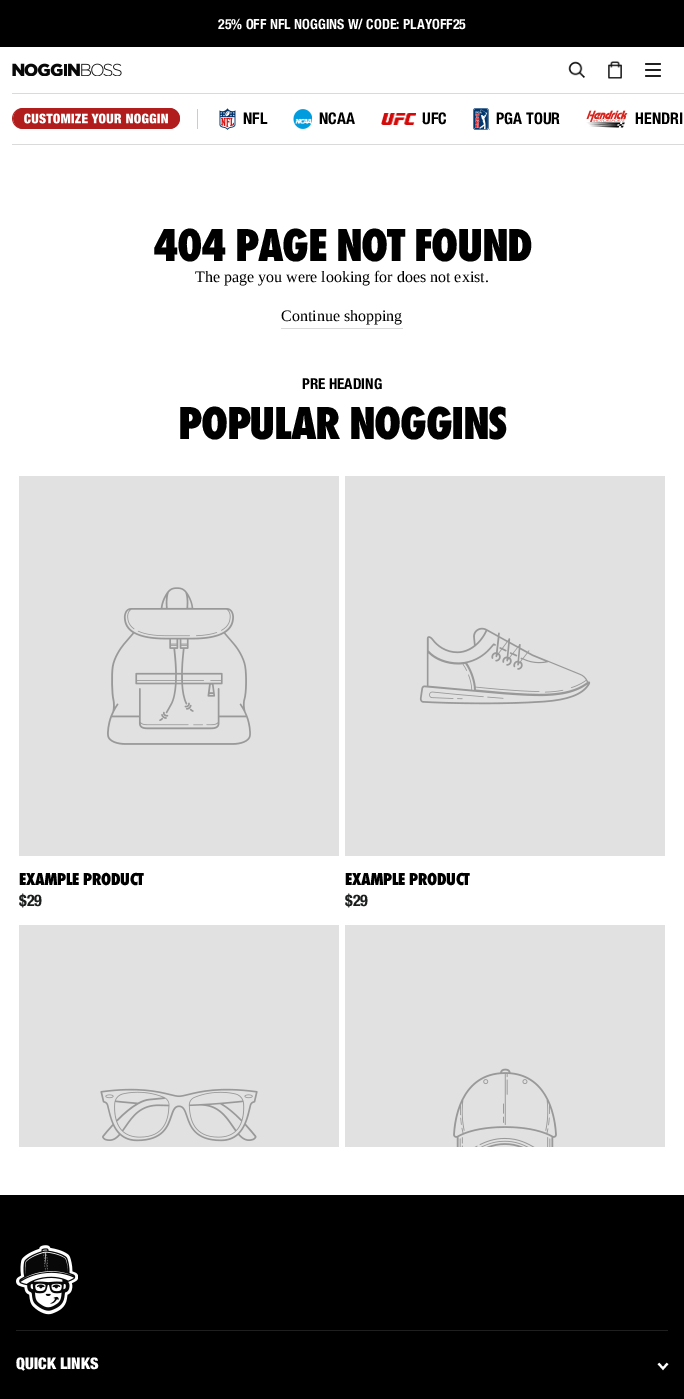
%!PS-Adobe-3.0
%%BoundingBox: 0 0 684 1399
%%LanguageLevel: 3
%%Pages: 1
%%EndComments
%%BeginProlog
/m { moveto } bind def
/l { lineto } bind def
/S { stroke } bind def
/w { setlinewidth } bind def
/fn { [ exch dup neg 0 0 3 -1 roll 0 0 ] selectfont } def
/tx { moveto show } def
/bx { rectfill } def
/im { 5 dict begin { /h /w /y /x /name } { exch def } forall
  gsave x y translate w h scale
  w h 8 [w 0 0 h 0 0] name (r) file false 3 colorimage grestore end } def
%%EndProlog
%%BeginSetup
<< /PageSize [684 1399] >> setpagedevice
%%EndSetup
%%Page: 1 1
0 1399 translate 1 -1 scale
4 setmiterlimit
1 setgray
0 0 684 1399 bx
0 setgray
0 0 684 47 bx
/HelveticaNeue-Bold 14 fn
1 setgray
(25% OFF NFL NOGGINS W/ CODE: PLAYOFF25) 218 29 tx
(image0.raw) 12 63 110 13 im
(image1.raw) 568 61 17 17 im
(image2.raw) 608 61 14 18 im
(image3.raw) 645 63 16 14 im
0.855 setgray
12 93 672 1 bx
12 144 672 1 bx
(image4.raw) 12 108 168 21 im
0.8 setgray
197 109 1 20 bx
(image5.raw) 219 108 17 22 im
/HelveticaNeue-Bold 16 fn
0 setgray
(NFL) 243 124 tx
(image6.raw) 293 109 19 20 im
(NCAA) 319 124 tx
(image7.raw) 381 113 35 12 im
(UFC) 422 124 tx
(image8.raw) 473 108 17 22 im
(PGA TOUR) 496 124 tx
(image9.raw) 586 110 42 18 im
(HENDRI) 635 124 tx
/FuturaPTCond-ExtraBold 48 fn
153 261 m -1.4 0 (404 PAGE NOT FOUND) ashow
/LiberationSerif-Regular 16 fn
(The page you were looking for does not exist.) 195 282 tx
0.851 setgray
281 328 122 1 bx
0 setgray
(Continue shopping) 281 321 tx
/HelveticaNeue-Bold 15 fn
(PRE HEADING) 302 389 tx
/FuturaPTCond-ExtraBold 48 fn
178 439 m -1.4 0 (POPULAR NOGGINS) ashow
0.882 setgray
19 476 320 380 bx
(image10.raw) 107 587 144 158 im
/FuturaPTCond-ExtraBold 18 fn
0 setgray
19 885 m -0.4 0 (EXAMPLE PRODUCT) ashow
/HelveticaNeue-Bold 16 fn
0.11 0.114 0.114 setrgbcolor
($29) 19 906 tx
0.882 setgray
345 476 320 380 bx
(image11.raw) 419 627 172 78 im
/FuturaPTCond-ExtraBold 18 fn
0 setgray
345 885 m -0.4 0 (EXAMPLE PRODUCT) ashow
/HelveticaNeue-Bold 16 fn
0.11 0.114 0.114 setrgbcolor
($29) 345 906 tx
0.882 setgray
19 925 320 222 bx
(image12.raw) 100 1088 158 54 im
345 925 320 222 bx
(image13.raw) 453 1068 104 79 im
0 setgray
0 1195 684 204 bx
(image14.raw) 16 1245 62 70 im
0.122 setgray
16 1330 652 1 bx
/HelveticaNeue-Black 16 fn
1 setgray
(QUICK LINKS) 16 1369 tx
2.1 w
658.5 1363.5 m 663 1368.5 l 667.5 1363.5 l S
showpage
%%EOF
